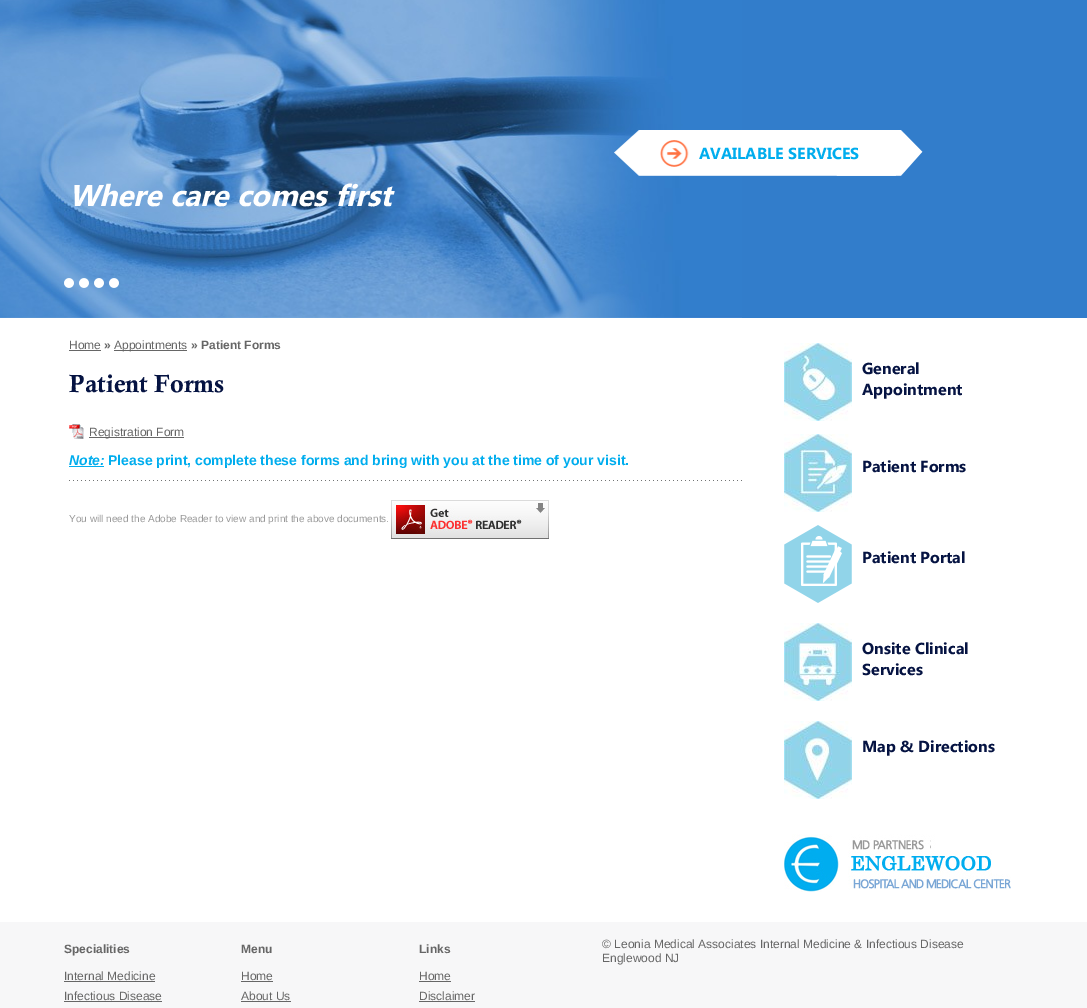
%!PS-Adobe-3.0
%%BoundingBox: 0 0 1087 1008
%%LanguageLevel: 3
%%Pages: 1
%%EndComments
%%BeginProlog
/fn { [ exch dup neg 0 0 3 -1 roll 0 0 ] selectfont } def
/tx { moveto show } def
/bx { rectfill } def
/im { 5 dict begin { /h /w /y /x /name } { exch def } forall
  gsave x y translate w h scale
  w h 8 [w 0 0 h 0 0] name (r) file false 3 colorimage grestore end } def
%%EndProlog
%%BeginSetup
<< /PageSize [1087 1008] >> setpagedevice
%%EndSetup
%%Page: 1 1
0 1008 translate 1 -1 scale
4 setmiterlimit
1 setgray
0 0 1087 1008 bx
0.196 0.49 0.796 setrgbcolor
742 0 345 318 bx
(image2.raw) 64 0 678 318 im
(image0.raw) 614 130 309 46 im
/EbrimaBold-Bold 16 fn
0 0.678 0.933 setrgbcolor
(AVAILABLE SERVICES) 699 159 tx
(image1.raw) 0 0 64 318 im
/EbrimaBold-BoldItalic 30 fn
1 setgray
(Where care comes first) 69 206 tx
(image3.raw) 64 278 10 10 im
(image4.raw) 79 278 10 10 im
(image5.raw) 94 278 10 10 im
(image6.raw) 109 278 10 10 im
/LiberationSans-Regular 12 fn
0.4 setgray
(Home) 69 349 tx
69 350 32 1 bx
/LiberationSans-Bold 12 fn
(») 104 349 tx
114 350 73 1 bx
/LiberationSans-Regular 12 fn
(Appointments) 114 349 tx
/LiberationSans-Bold 12 fn
(» Patient Forms) 191 349 tx
/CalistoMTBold-Bold 25 fn
0.02 0.075 0.259 setrgbcolor
(Patient Forms) 69 392 tx
(image7.raw) 69 424 15 15 im
0.4 setgray
89 437 95 1 bx
/LiberationSans-Regular 12 fn
(Registration Form) 89 436 tx
/LiberationSans-BoldItalic 14 fn
0 0.678 0.933 setrgbcolor
(Note:) 69 465 tx
69 466 35 1 bx
/LiberationSans-Bold 14 fn
(Please print, complete these forms and bring with you at the time of your visit.) 108 465 tx
(image8.raw) 69 480 673 1 im
/LiberationSans-Regular 10 fn
0.6 setgray
(You will need the Adobe Reader to view and print the above documents.) 69 522 tx
(image9.raw) 391 500 158 39 im
(image10.raw) 784 343 68 78 im
/EbrimaBold-Bold 16 fn
0.02 0.075 0.259 setrgbcolor
(General) 862 374 tx
(Appointment) 862 395 tx
(image11.raw) 784 434 68 78 im
(Patient Forms) 862 472 tx
(image12.raw) 784 525 68 78 im
(Patient Portal) 862 563 tx
(image13.raw) 784 623 68 78 im
(Onsite Clinical) 862 654 tx
(Services) 862 675 tx
(image14.raw) 784 721 68 78 im
(Map & Directions) 862 752 tx
(image15.raw) 784 834 227 58 im
0.969 0.969 0.973 setrgbcolor
0 922 1087 86 bx
/LiberationSans-Bold 12 fn
0.4 setgray
(Specialities) 64 953 tx
/LiberationSans-Regular 12 fn
(Internal Medicine) 64 980 tx
64 981 91 1 bx
(Infectious Disease) 64 1000 tx
64 1001 98 1 bx
/LiberationSans-Bold 12 fn
(Menu) 241 953 tx
/LiberationSans-Regular 12 fn
(Home) 241 980 tx
241 981 32 1 bx
(About Us) 241 1000 tx
241 1001 50 1 bx
/LiberationSans-Bold 12 fn
(Links) 419 953 tx
/LiberationSans-Regular 12 fn
(Home) 419 980 tx
419 981 32 1 bx
(Disclaimer) 419 1000 tx
419 1001 56 1 bx
(© Leonia Medical Associates Internal Medicine & Infectious Disease) 602 948 tx
(Englewood NJ) 602 962 tx
showpage
%%EOF
